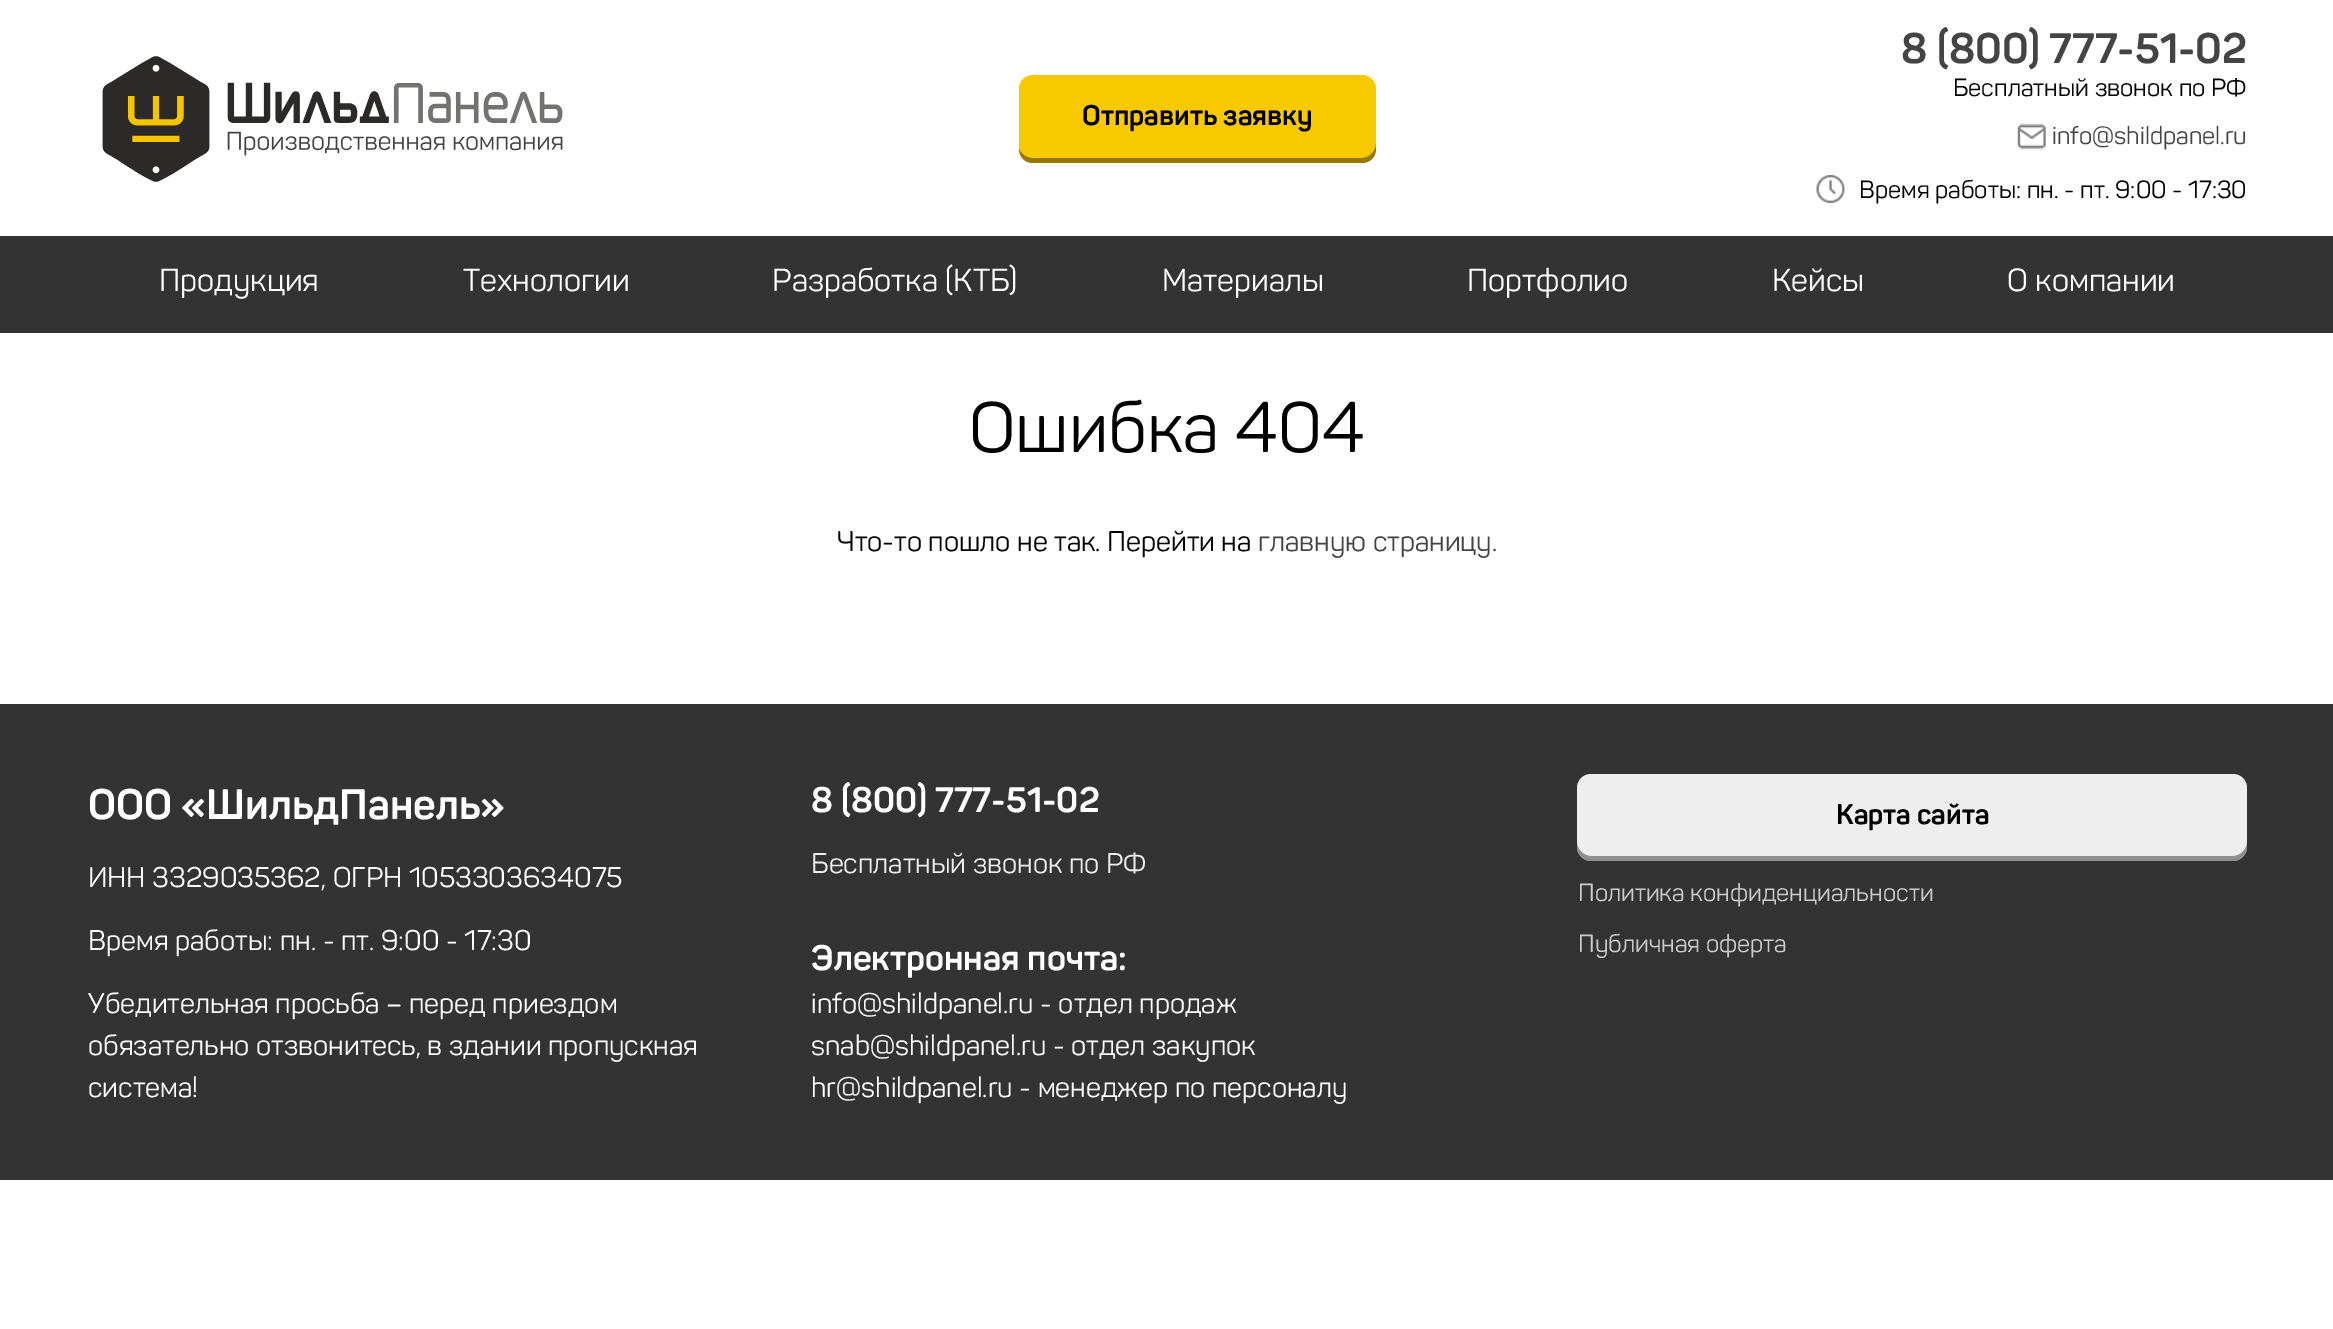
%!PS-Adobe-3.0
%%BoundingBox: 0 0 2333 1329
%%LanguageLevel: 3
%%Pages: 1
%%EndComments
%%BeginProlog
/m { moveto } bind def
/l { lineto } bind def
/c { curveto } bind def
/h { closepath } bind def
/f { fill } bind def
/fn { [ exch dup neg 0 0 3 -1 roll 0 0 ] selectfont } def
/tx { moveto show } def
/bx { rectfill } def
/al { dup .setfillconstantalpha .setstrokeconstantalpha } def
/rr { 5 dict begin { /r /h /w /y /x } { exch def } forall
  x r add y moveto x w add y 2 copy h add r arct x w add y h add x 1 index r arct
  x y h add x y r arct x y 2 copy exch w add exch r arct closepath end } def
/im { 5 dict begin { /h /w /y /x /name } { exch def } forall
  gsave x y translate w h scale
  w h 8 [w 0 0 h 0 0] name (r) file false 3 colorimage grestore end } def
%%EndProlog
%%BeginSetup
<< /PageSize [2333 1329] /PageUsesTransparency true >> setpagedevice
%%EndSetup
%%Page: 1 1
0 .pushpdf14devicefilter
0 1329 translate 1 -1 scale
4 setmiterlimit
1 setgray
0 0 2333 1329 bx
(image0.raw) 102 56 461 126 im
0.973 0.788 0.004 setrgbcolor
1019 75 357 88 14 rr f
0.4 al
0 setgray
1019 149 m 1019 157 1025 163 1033 163 c 1362 163 l 1370 163 1376 157 1376 149 c 1376 144 l 1376 151 1369 158 1362 158 c 1032 158 l 1027 158 1021 154 1019 149 c h f
/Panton-Bold 28 fn
1 al
(Отправить заявку) 1082 125 tx
/Panton-Bold 42 fn
0.267 setgray
(8 \(800\) 777-51-02) 1901 63 tx
/Panton-Regular 24.5 fn
0 setgray
(Бесплатный звонок по РФ) 1953 96 tx
(image1.raw) 2017 123 29 27 im
0.267 setgray
(info@shildpanel.ru) 2052 144 tx
(image2.raw) 1816 175 29 28 im
0 setgray
(Время работы: пн. - пт. 9:00 - 17:30) 1859 198 tx
0.2 setgray
0 236 2333 97 bx
/Panton-Regular 31.5 fn
1 setgray
(Продукция) 159 291 tx
(Технологии) 463 291 tx
(Разработка \(КТБ\)) 772 291 tx
(Материалы) 1162 291 tx
(Портфолио) 1467 291 tx
(Кейсы) 1772 291 tx
(О компании) 2007 291 tx
/Panton-Regular 70 fn
0 setgray
(Ошибка 404) 969 452 tx
/Panton-Regular 28 fn
(Что-то пошло не так. Перейти на) 837 551 tx
0.267 setgray
(главную страницу.) 1258 551 tx
0.2 setgray
0 704 2333 476 bx
/Panton-Bold 42 fn
1 setgray
(ООО «ШильдПанель») 88 819 tx
/Panton-Regular 28 fn
(ИНН 3329035362, ОГРН 1053303634075) 88 887 tx
(Время работы: пн. - пт. 9:00 - 17:30) 88 950 tx
(Убедительная просьба – перед приездом) 88 1013 tx
(обязательно отзвонитесь, в здании пропускная) 88 1055 tx
(система!) 88 1097 tx
/Panton-Bold 35 fn
(8 \(800\) 777-51-02) 811 812 tx
/Panton-Regular 28 fn
0.933 setgray
(Бесплатный звонок по РФ) 811 873 tx
/Panton-Bold 35 fn
1 setgray
(Электронная почта:) 811 970 tx
/Panton-Regular 28 fn
(info@shildpanel.ru - отдел продаж) 811 1013 tx
(snab@shildpanel.ru - отдел закупок) 811 1055 tx
(hr@shildpanel.ru - менеджер по персоналу) 811 1097 tx
0.933 setgray
1577 774 670 87 14 rr f
0.4 al
0 setgray
1577 842 m 1577 847 l 1577 855 1583 861 1591 861 c 2233 861 l 2241 861 2247 855 2247 847 c 2247 842 l 2247 849 2241 856 2233 856 c 1591 856 l 1583 856 1577 849 1577 842 c h f
/Panton-Bold 28 fn
1 al
(Карта сайта) 1836 824 tx
/Panton-Regular 24.5 fn
0.8 setgray
(Политика конфиденциальности) 1578 901 tx
(Публичная оферта) 1578 952 tx
.poppdf14devicefilter showpage
%%EOF
